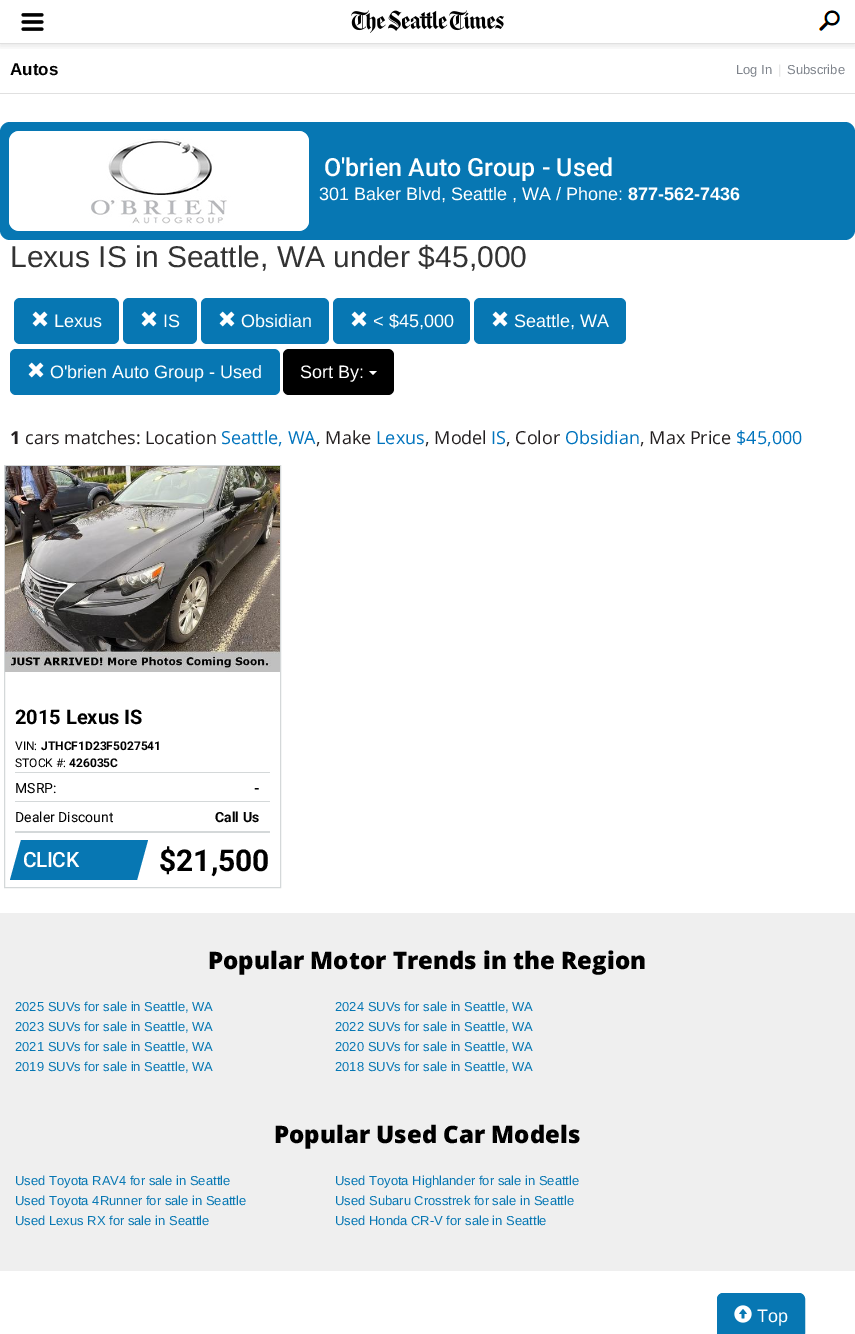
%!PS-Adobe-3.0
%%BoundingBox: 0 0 855 1334
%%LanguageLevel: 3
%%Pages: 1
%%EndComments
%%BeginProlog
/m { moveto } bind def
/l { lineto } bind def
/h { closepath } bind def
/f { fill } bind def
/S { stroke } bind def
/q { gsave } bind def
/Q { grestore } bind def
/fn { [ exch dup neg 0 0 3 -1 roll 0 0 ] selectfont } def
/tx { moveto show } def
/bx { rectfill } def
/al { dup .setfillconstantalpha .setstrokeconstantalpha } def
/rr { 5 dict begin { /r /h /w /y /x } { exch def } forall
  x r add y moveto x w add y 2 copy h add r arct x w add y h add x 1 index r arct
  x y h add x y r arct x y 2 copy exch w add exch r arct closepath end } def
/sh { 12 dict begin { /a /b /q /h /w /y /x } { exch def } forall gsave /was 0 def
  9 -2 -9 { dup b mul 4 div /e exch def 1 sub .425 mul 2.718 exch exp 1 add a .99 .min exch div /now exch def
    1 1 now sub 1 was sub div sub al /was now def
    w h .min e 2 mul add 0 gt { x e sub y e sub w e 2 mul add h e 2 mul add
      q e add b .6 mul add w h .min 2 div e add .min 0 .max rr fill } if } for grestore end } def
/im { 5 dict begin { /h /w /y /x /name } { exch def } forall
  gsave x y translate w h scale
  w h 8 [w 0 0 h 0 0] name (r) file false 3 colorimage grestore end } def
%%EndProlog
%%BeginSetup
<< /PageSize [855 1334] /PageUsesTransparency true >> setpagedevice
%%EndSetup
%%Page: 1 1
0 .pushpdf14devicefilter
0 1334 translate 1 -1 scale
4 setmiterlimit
1 setgray
0 0 855 1334 bx
q
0 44 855 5 rectclip
0 setgray
0 2 855 44 0 3.5 0.1 sh
Q
0.878 setgray
0 43 855 1 bx
(image0.raw) 21 13 23 18 im
(image1.raw) 351 10 153 23 im
(image2.raw) 819 10 21 21 im
0 93 855 1 bx
/LiberationSans-Bold 17 fn
0 setgray
(Autos) 10 75 tx
/LiberationSans-Regular 13 fn
0.494 0.514 0.545 setrgbcolor
(Log In) 736 74 tx
0.878 setgray
(|) 778 74 tx
0.494 0.514 0.545 setrgbcolor
(Subscribe) 787 74 tx
0.027 0.467 0.702 setrgbcolor
0 122 855 118 10 rr f
1 setgray
9 131 300 100 10 rr f
(image3.raw) 9 131 300 100 im
/Roboto-Medium 25 fn
(O'brien Auto Group - Used) 324 176 tx
/LiberationSans-Regular 18 fn
(301 Baker Blvd, Seattle , WA / Phone:) 319 200 tx
/LiberationSans-Bold 18 fn
(877-562-7436) 628 200 tx
/LiberationSans-Regular 30 fn
0.2 setgray
(Lexus IS in Seattle, WA under $45,000) 10 267 tx
0.027 0.467 0.702 setrgbcolor
14 298 105 46 6 rr f
(image4.raw) 32 311 16 16 im
/LiberationSans-Regular 18 fn
1 setgray
(Lexus) 54 327 tx
0.027 0.467 0.702 setrgbcolor
123 298 74 46 6 rr f
(image4.raw) 141 311 16 16 im
1 setgray
(IS) 163 327 tx
0.027 0.467 0.702 setrgbcolor
201 298 128 46 6 rr f
(image4.raw) 219 311 16 16 im
1 setgray
(Obsidian) 241 327 tx
0.027 0.467 0.702 setrgbcolor
333 298 137 46 6 rr f
(image4.raw) 351 311 16 16 im
1 setgray
(< $45,000) 373 327 tx
0.027 0.467 0.702 setrgbcolor
474 298 152 46 6 rr f
(image4.raw) 492 311 16 16 im
1 setgray
(Seattle, WA) 514 327 tx
0.027 0.467 0.702 setrgbcolor
10 349 270 46 6 rr f
(image4.raw) 28 362 16 16 im
1 setgray
(O'brien Auto Group - Used) 50 378 tx
0 setgray
283 349 111 46 6 rr f
1 setgray
(Sort By:) 300 378 tx
369 371 m 377 371 l 373 375 l h f
/OpenSans-Bold 18 fn
0.137 0.122 0.125 setrgbcolor
(1) 10 444 tx
/OpenSans-Regular 18 fn
(cars matches: Location) 25 444 tx
0 0.451 0.741 setrgbcolor
(Seattle, WA) 221 444 tx
0.137 0.122 0.125 setrgbcolor
(, Make) 316 444 tx
0 0.451 0.741 setrgbcolor
(Lexus) 376 444 tx
0.137 0.122 0.125 setrgbcolor
(, Model) 425 444 tx
0 0.451 0.741 setrgbcolor
(IS) 491 444 tx
0.137 0.122 0.125 setrgbcolor
(, Color) 506 444 tx
0 0.451 0.741 setrgbcolor
(Obsidian) 565 444 tx
0.137 0.122 0.125 setrgbcolor
(, Max Price) 640 444 tx
0 0.451 0.741 setrgbcolor
($45,000) 736 444 tx
0.831 0.847 0.851 setrgbcolor
4.5 465.5 276 422 rectstroke
(image5.raw) 5 466 275 206 im
/Roboto-Bold 20 fn
0 setgray
(2015 Lexus IS) 15 724 tx
/Roboto-Regular 12 fn
(VIN:) 15 750 tx
/Roboto-Bold 12 fn
(JTHCF1D23F5027541) 41 750 tx
/Roboto-Regular 12 fn
(STOCK #:) 15 767 tx
/Roboto-Bold 12 fn
(426035C) 69 767 tx
0.831 0.847 0.851 setrgbcolor
15 772 255 1 bx
15 801 255 1 bx
/Roboto-Regular 14 fn
0 setgray
(MSRP:) 15 793 tx
/Roboto-Bold 14 fn
(-) 254 793 tx
0.831 0.847 0.851 setrgbcolor
15 831 255 2 bx
/Roboto-Regular 14 fn
0 setgray
(Dealer Discount) 15 822 tx
/Roboto-Bold 14 fn
(Call Us) 215 822 tx
0.027 0.467 0.702 setrgbcolor
21 840 m 148 840 l 137 880 l 10 880 l h f
/Roboto-Medium 21 fn
1 setgray
23 867 m -0.5 0 (CLICK) ashow
/Roboto-Bold 30 fn
0 setgray
($21,500) 159 871 tx
0.027 0.467 0.702 setrgbcolor
717.5 1293.5 87 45 5.5 rr q f Q
S
(image6.raw) 734 1305 18 18 im
/LiberationSans-Regular 18 fn
1 setgray
(Top) 757 1322 tx
0.937 setgray
0 913 855 358 bx
/OpenSans-ExtraBold 24 fn
0 setgray
(Popular Motor Trends in the Region) 208 969 tx
/LiberationSans-Regular 13 fn
0.027 0.467 0.702 setrgbcolor
(2025 SUVs for sale in Seattle, WA) 15 1011 tx
(2024 SUVs for sale in Seattle, WA) 335 1011 tx
(2023 SUVs for sale in Seattle, WA) 15 1031 tx
(2022 SUVs for sale in Seattle, WA) 335 1031 tx
(2021 SUVs for sale in Seattle, WA) 15 1051 tx
(2020 SUVs for sale in Seattle, WA) 335 1051 tx
(2019 SUVs for sale in Seattle, WA) 15 1071 tx
(2018 SUVs for sale in Seattle, WA) 335 1071 tx
/OpenSans-ExtraBold 24 fn
0 setgray
(Popular Used Car Models) 274 1143 tx
/LiberationSans-Regular 13 fn
0.027 0.467 0.702 setrgbcolor
(Used Toyota RAV4 for sale in Seattle) 15 1185 tx
(Used Toyota Highlander for sale in Seattle) 335 1185 tx
(Used Toyota 4Runner for sale in Seattle) 15 1205 tx
(Used Subaru Crosstrek for sale in Seattle) 335 1205 tx
(Used Lexus RX for sale in Seattle) 15 1225 tx
(Used Honda CR-V for sale in Seattle) 335 1225 tx
.poppdf14devicefilter showpage
%%EOF
